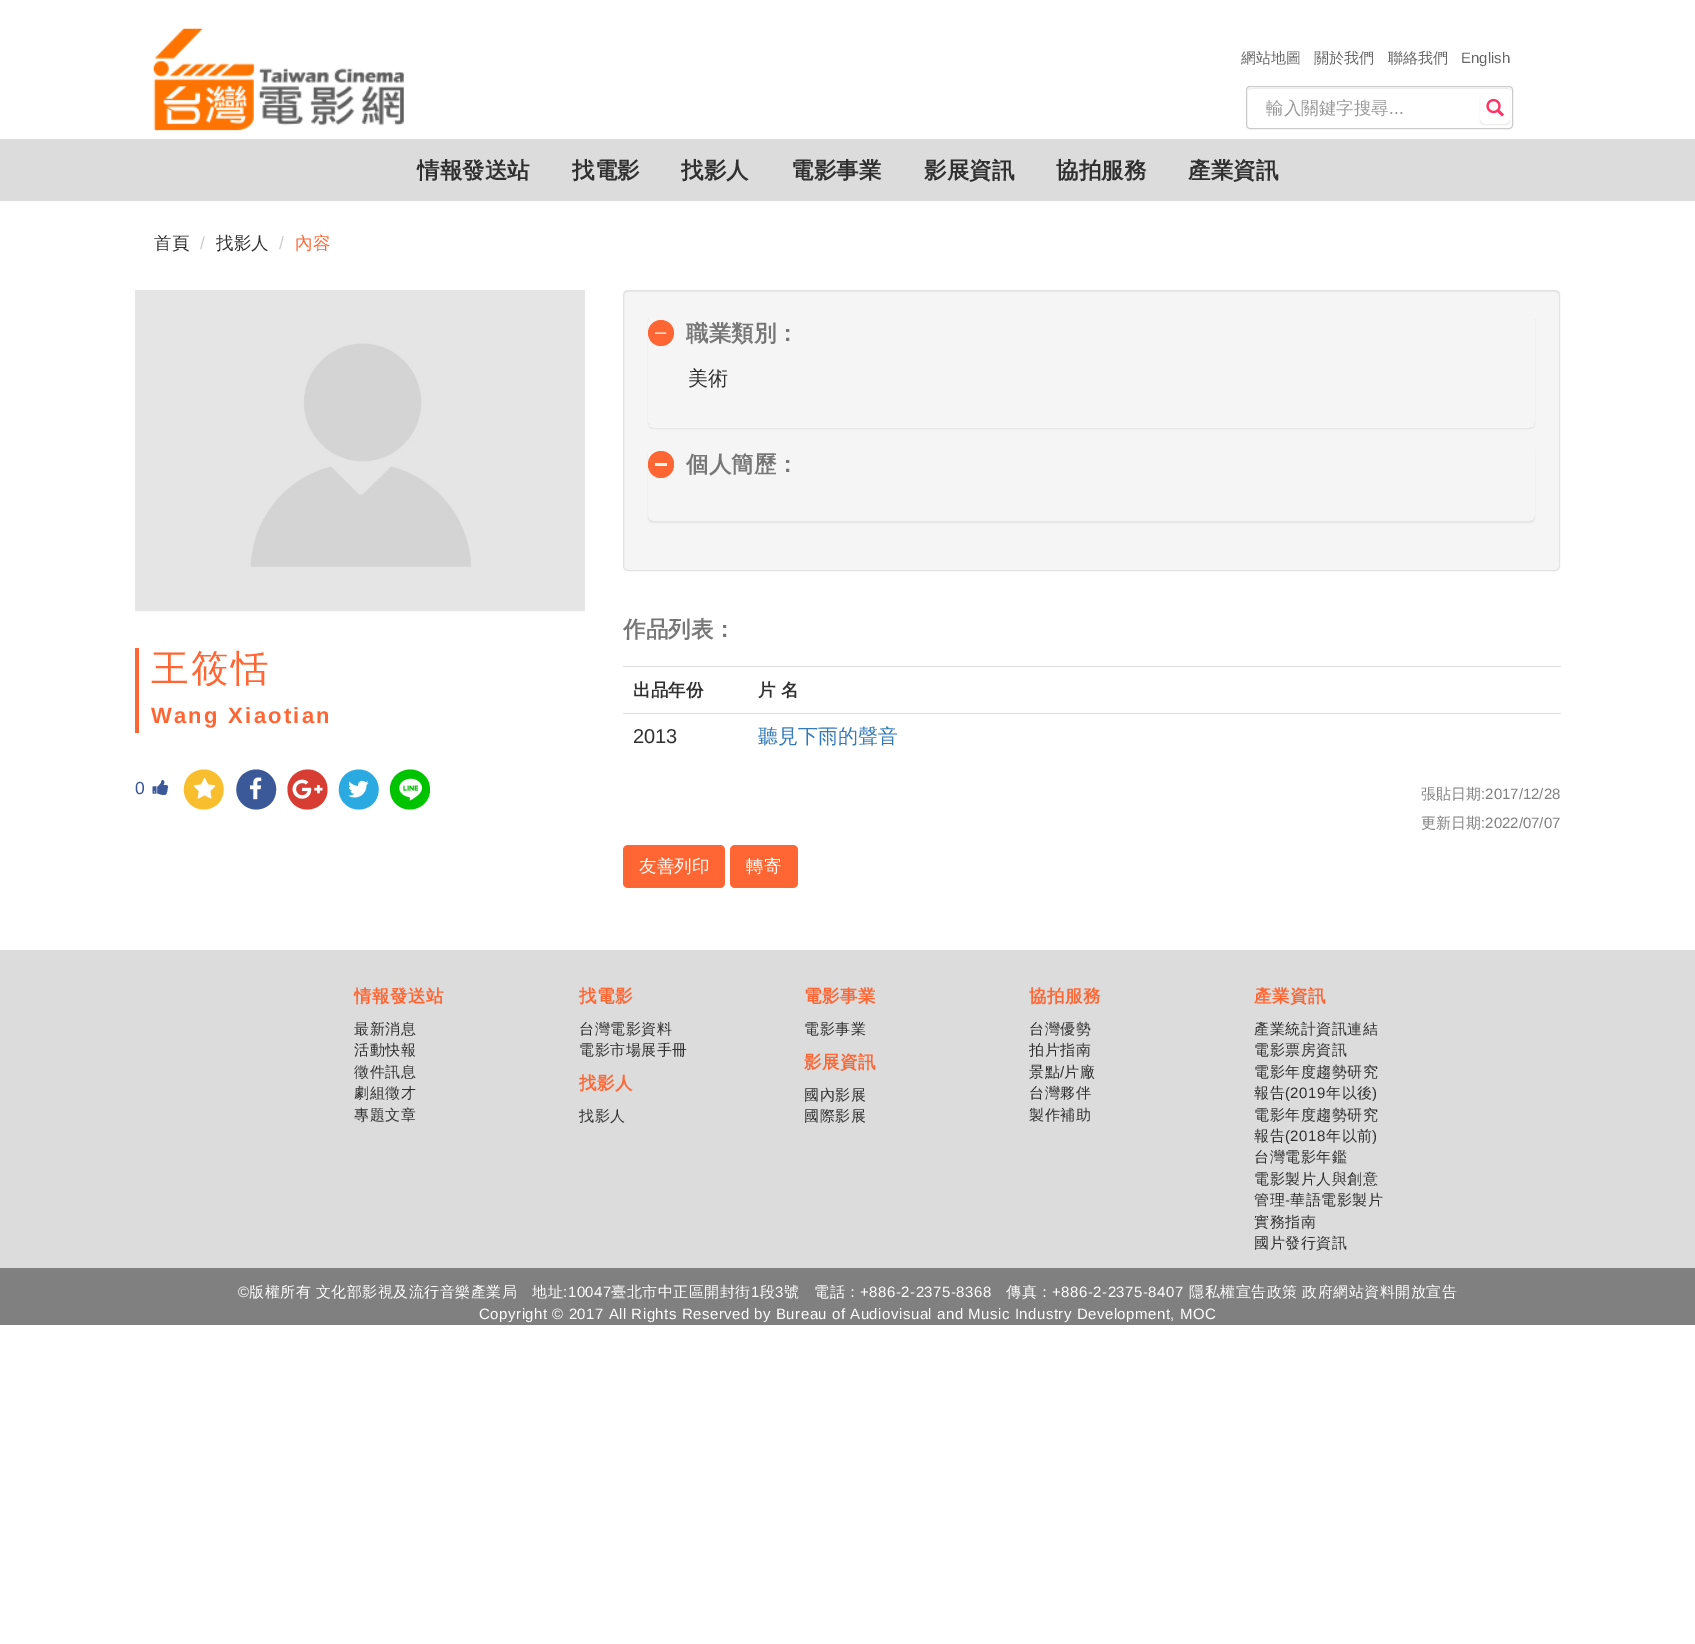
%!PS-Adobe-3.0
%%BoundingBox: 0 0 1695 1644
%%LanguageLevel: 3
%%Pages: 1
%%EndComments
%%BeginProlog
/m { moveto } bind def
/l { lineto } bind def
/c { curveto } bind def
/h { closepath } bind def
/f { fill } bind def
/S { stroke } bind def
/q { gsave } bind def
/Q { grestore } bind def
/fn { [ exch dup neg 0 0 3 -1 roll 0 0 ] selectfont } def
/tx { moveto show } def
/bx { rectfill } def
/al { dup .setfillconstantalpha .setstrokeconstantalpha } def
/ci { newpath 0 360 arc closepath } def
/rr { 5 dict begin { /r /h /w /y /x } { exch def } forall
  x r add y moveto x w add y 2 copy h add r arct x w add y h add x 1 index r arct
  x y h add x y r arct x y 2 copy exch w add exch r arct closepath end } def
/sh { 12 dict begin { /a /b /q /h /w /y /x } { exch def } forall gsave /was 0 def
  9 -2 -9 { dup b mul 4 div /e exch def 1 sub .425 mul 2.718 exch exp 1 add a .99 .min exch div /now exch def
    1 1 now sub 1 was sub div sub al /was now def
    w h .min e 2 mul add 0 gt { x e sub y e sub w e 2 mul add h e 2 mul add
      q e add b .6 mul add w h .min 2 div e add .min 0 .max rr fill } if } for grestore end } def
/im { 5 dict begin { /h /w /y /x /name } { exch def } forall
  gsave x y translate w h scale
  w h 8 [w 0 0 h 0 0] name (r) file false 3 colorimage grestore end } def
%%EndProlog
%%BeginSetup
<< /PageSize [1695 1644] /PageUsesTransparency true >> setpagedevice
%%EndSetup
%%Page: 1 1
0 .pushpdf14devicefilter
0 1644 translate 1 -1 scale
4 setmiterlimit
1 setgray
0 0 1695 1644 bx
(image0.raw) 153 28 251 103 im
/WenQuanYiZenHei-Medium 15 fn
0.4 setgray
(網站地圖) 1241 63 tx
(關於我們) 1314 63 tx
(聯絡我們) 1388 63 tx
/LiberationSans-Regular 15 fn
(English) 1461 63 tx
0.925 setgray
1250 89 m 1509 89 l 1510 89 1511 90 1511 91 c 1511 89 1510 88 1508 88 c 1250 88 l 1248 89 l 1248 91 l 1248 90 1249 89 1250 89 c h f
0.8 setgray
1246.5 86.5 266 42 3.5 rr S
/WenQuanYiZenHei-Medium 17.5 fn
0.6 setgray
(輸入關鍵字搜尋) 1266 114 tx
/LiberationSans-Regular 17.5 fn
(...) 1389 114 tx
q
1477 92 m 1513 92 l 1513 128 l 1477 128 l h 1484 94 m 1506 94 l 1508 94 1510 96 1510 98 c 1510 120 l 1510 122 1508 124 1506 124 c 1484 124 l 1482 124 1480 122 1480 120 c 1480 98 l 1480 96 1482 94 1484 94 c h eoclip newpath
0 setgray
1480 95 30 30 4 0.5 0.07 sh
Q
(image1.raw) 1486 98 18 19 im
0.863 setgray
0 139 1695 62 bx
/WenQuanYiZenHei-Bold 22.5 fn
0.188 setgray
(情報發送站) 417 178 tx
(找電影) 572 178 tx
(找影人) 681 178 tx
(電影事業) 791 178 tx
(影展資訊) 924 178 tx
(協拍服務) 1056 178 tx
(產業資訊) 1188 178 tx
/WenQuanYiZenHei-Medium 17.5 fn
(首頁) 154 249 tx
/LiberationSans-Regular 17.5 fn
0.8 setgray
(/) 200 249 tx
/WenQuanYiZenHei-Medium 17.5 fn
0.188 setgray
(找影人) 216 249 tx
/LiberationSans-Regular 17.5 fn
0.8 setgray
(/) 279 249 tx
/WenQuanYiZenHei-Medium 17.5 fn
1 0.4 0.2 setrgbcolor
(內容) 295 249 tx
(image2.raw) 135 290 450 322 im
135 648 4 85 bx
/WenQuanYiZenHei-Medium 37.5 fn
151 681 m 2.25 0 (王筱恬) ashow
/LiberationSans-Bold 22 fn
151 723 m 2.25 0 (Wang Xiaotian) ashow
/LiberationSans-Regular 17.5 fn
0.231 0.345 0.6 setrgbcolor
(0) 135 794 tx
(image3.raw) 152 780 17 15 im
0.976 0.745 0.176 setrgbcolor
221 779.5 m 223 783 224 787 223.5 791 c 222.5 810.5 196.5 816.5 186.5 799.5 c 184.5 796 183.5 792 184 788 c 185 768.5 211 762.5 221 779.5 c h f
(image4.raw) 193 778 23 21 im
0.231 0.349 0.596 setrgbcolor
273.5 779.5 m 275.5 783 276.5 787 276 791 c 275 810.5 249 816.5 239 799.5 c 237 796 236 792 236.5 788 c 237.5 768.5 263.5 762.5 273.5 779.5 c h f
(image5.raw) 250 777 12 23 im
0.843 0.239 0.196 setrgbcolor
325 779.5 m 327 783 327.5 787 327.5 791 c 326 810.5 300 816.5 290 799.5 c 288 796 287.5 792 287.5 788 c 289 768.5 315 762.5 325 779.5 c h f
(image6.raw) 292 779 31 20 im
0.169 0.663 0.882 setrgbcolor
376 779.5 m 378 783 379 787 378.5 791 c 377.5 810.5 351.5 816.5 341.5 799.5 c 339.5 796 338.5 792 339 788 c 340 768.5 366 762.5 376 779.5 c h f
(image7.raw) 348 780 21 18 im
0 0.765 0 setrgbcolor
427.5 779.5 m 429.5 783 430 787 430 791 c 428.5 810.5 402.5 816.5 392.5 799.5 c 390.5 796 390 792 390 788 c 391.5 768.5 417.5 762.5 427.5 779.5 c h f
(image8.raw) 399 778 23 23 im
0.961 setgray
623 290 937 281 5 rr f
0.914 setgray
628 292 m 1555 292 l 1557 292 1559 294 1559 296 c 1559 293 1558 291 1555 291 c 628 291 l 625 291 624 293 624 296 c 624 294 625 292 628 292 c h f
0.89 setgray
623.5 290.5 936 280 4.5 rr S
q
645 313 m 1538 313 l 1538 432 l 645 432 l h 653 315 m 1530 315 l 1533 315 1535 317 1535 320 c 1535 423 l 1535 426 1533 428 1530 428 c 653 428 l 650 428 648 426 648 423 c 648 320 l 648 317 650 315 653 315 c h eoclip newpath
0 setgray
648 316 887 113 5 0.5 0.05 sh
Q
1 0.4 0.2 setrgbcolor
661 333 13 ci f
(image9.raw) 655 332 12 2 im
/WenQuanYiZenHei-Bold 22.5 fn
0.467 setgray
(職業類別：) 686 341 tx
/WenQuanYiZenHei-Medium 20 fn
0.188 setgray
(美術) 688 385 tx
q
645 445 m 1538 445 l 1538 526 l 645 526 l h 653 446 m 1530 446 l 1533 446 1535 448 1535 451 c 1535 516 l 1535 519 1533 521 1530 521 c 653 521 l 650 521 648 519 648 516 c 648 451 l 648 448 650 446 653 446 c h eoclip newpath
0 setgray
648 448 887 75 5 0.5 0.05 sh
Q
1 0.4 0.2 setrgbcolor
648 451 26 27 13 rr f
1 0.965 0.953 setrgbcolor
655 463 12 3 bx
/WenQuanYiZenHei-Bold 22.5 fn
0.467 setgray
(個人簡歷：) 686 472 tx
(作品列表：) 623 637 tx
/WenQuanYiZenHei-Bold 17.5 fn
0.188 setgray
(出品年份) 633 696 tx
0.867 setgray
623 666 938 1 bx
0.188 setgray
(片 名) 758 696 tx
/LiberationSans-Regular 20 fn
(2013) 633 743 tx
0.867 setgray
623 713 938 1 bx
/WenQuanYiZenHei-Medium 20 fn
0.2 0.478 0.718 setrgbcolor
(聽見下雨的聲音) 758 743 tx
/WenQuanYiZenHei-Medium 15 fn
0.502 setgray
(張貼日期) 1421 799 tx
/LiberationSans-Regular 15 fn
(:2017/12/28) 1481 799 tx
/WenQuanYiZenHei-Medium 15 fn
(更新日期) 1421 828 tx
/LiberationSans-Regular 15 fn
(:2022/07/07) 1481 828 tx
1 0.4 0.2 setrgbcolor
623 845 102 43 5 rr f
/WenQuanYiZenHei-Medium 17.5 fn
1 setgray
(友善列印) 639 872 tx
1 0.4 0.2 setrgbcolor
730 845 68 43 5 rr f
1 setgray
(轉寄) 746 872 tx
0.863 setgray
0 950 1695 318 bx
/WenQuanYiZenHei-Bold 17.5 fn
1 0.4 0.2 setrgbcolor
354 1002 m 0.5 0 (情報發送站) ashow
/WenQuanYiZenHei-Medium 15 fn
0.188 setgray
354 1034 m 0.5 0 (最新消息) ashow
354 1055 m 0.5 0 (活動快報) ashow
354 1077 m 0.5 0 (徵件訊息) ashow
354 1098 m 0.5 0 (劇組徵才) ashow
354 1120 m 0.5 0 (專題文章) ashow
/WenQuanYiZenHei-Bold 17.5 fn
1 0.4 0.2 setrgbcolor
579 1002 m 0.5 0 (找電影) ashow
/WenQuanYiZenHei-Medium 15 fn
0.188 setgray
579 1034 m 0.5 0 (台灣電影資料) ashow
579 1055 m 0.5 0 (電影市場展手冊) ashow
/WenQuanYiZenHei-Bold 17.5 fn
1 0.4 0.2 setrgbcolor
579 1089 m 0.5 0 (找影人) ashow
/WenQuanYiZenHei-Medium 15 fn
0.188 setgray
579 1121 m 0.5 0 (找影人) ashow
/WenQuanYiZenHei-Bold 17.5 fn
1 0.4 0.2 setrgbcolor
804 1002 m 0.5 0 (電影事業) ashow
/WenQuanYiZenHei-Medium 15 fn
0.188 setgray
804 1034 m 0.5 0 (電影事業) ashow
/WenQuanYiZenHei-Bold 17.5 fn
1 0.4 0.2 setrgbcolor
804 1068 m 0.5 0 (影展資訊) ashow
/WenQuanYiZenHei-Medium 15 fn
0.188 setgray
804 1100 m 0.5 0 (國內影展) ashow
804 1121 m 0.5 0 (國際影展) ashow
/WenQuanYiZenHei-Bold 17.5 fn
1 0.4 0.2 setrgbcolor
1029 1002 m 0.5 0 (協拍服務) ashow
/WenQuanYiZenHei-Medium 15 fn
0.188 setgray
1029 1034 m 0.5 0 (台灣優勢) ashow
1029 1055 m 0.5 0 (拍片指南) ashow
1029 1077 m 0.5 0 (景點) ashow
/LiberationSans-Regular 15 fn
1060 1077 m 0.5 0 (/) ashow
/WenQuanYiZenHei-Medium 15 fn
1064 1077 m 0.5 0 (片廠) ashow
1029 1098 m 0.5 0 (台灣夥伴) ashow
1029 1120 m 0.5 0 (製作補助) ashow
/WenQuanYiZenHei-Bold 17.5 fn
1 0.4 0.2 setrgbcolor
1254 1002 m 0.5 0 (產業資訊) ashow
/WenQuanYiZenHei-Medium 15 fn
0.188 setgray
1254 1034 m 0.5 0 (產業統計資訊連結) ashow
1254 1055 m 0.5 0 (電影票房資訊) ashow
1254 1077 m 0.5 0 (電影年度趨勢研究) ashow
1254 1098 m 0.5 0 (報告) ashow
/LiberationSans-Regular 15 fn
1285 1098 m 0.5 0 (\(2019) ashow
/WenQuanYiZenHei-Medium 15 fn
1326 1098 m 0.5 0 (年以後) ashow
/LiberationSans-Regular 15 fn
1372 1098 m 0.5 0 (\)) ashow
/WenQuanYiZenHei-Medium 15 fn
1254 1120 m 0.5 0 (電影年度趨勢研究) ashow
1254 1141 m 0.5 0 (報告) ashow
/LiberationSans-Regular 15 fn
1285 1141 m 0.5 0 (\(2018) ashow
/WenQuanYiZenHei-Medium 15 fn
1326 1141 m 0.5 0 (年以前) ashow
/LiberationSans-Regular 15 fn
1372 1141 m 0.5 0 (\)) ashow
/WenQuanYiZenHei-Medium 15 fn
1254 1162 m 0.5 0 (台灣電影年鑑) ashow
1254 1184 m 0.5 0 (電影製片人與創意) ashow
1254 1205 m 0.5 0 (管理) ashow
/LiberationSans-Regular 15 fn
1285 1205 m 0.5 0 (-) ashow
/WenQuanYiZenHei-Medium 15 fn
1290 1205 m 0.5 0 (華語電影製片) ashow
1254 1227 m 0.5 0 (實務指南) ashow
1254 1248 m 0.5 0 (國片發行資訊) ashow
0.502 setgray
0 1268 1695 57 bx
/LiberationSans-Regular 15 fn
1 setgray
238 1297 m 0.5 0 (©) ashow
/WenQuanYiZenHei-Medium 15 fn
249 1297 m 0.5 0 (版權所有 文化部影視及流行音樂產業局) ashow
532 1297 m 0.5 0 (地址) ashow
/LiberationSans-Regular 15 fn
563 1297 m 0.5 0 (:10047) ashow
/WenQuanYiZenHei-Medium 15 fn
611 1297 m 0.5 0 (臺北市中正區開封街) ashow
/LiberationSans-Regular 15 fn
751 1297 m 0.5 0 (1) ashow
/WenQuanYiZenHei-Medium 15 fn
760 1297 m 0.5 0 (段) ashow
/LiberationSans-Regular 15 fn
775 1297 m 0.5 0 (3) ashow
/WenQuanYiZenHei-Medium 15 fn
784 1297 m 0.5 0 (號) ashow
814 1297 m 0.5 0 (電話：) ashow
/LiberationSans-Regular 15 fn
860 1297 m 0.5 0 (+886-2-2375-8368) ashow
/WenQuanYiZenHei-Medium 15 fn
1006 1297 m 0.5 0 (傳真：) ashow
/LiberationSans-Regular 15 fn
1052 1297 m 0.5 0 (+886-2-2375-8407) ashow
/WenQuanYiZenHei-Medium 15 fn
1189 1297 m 0.5 0 (隱私權宣告政策) ashow
1302 1297 m 0.5 0 (政府網站資料開放宣告) ashow
/LiberationSans-Regular 15 fn
479 1319 m 0.5 0 (Copyright © 2017 All Rights Reserved by Bureau of Audiovisual and Music Industry Development, MOC) ashow
.poppdf14devicefilter showpage
%%EOF
